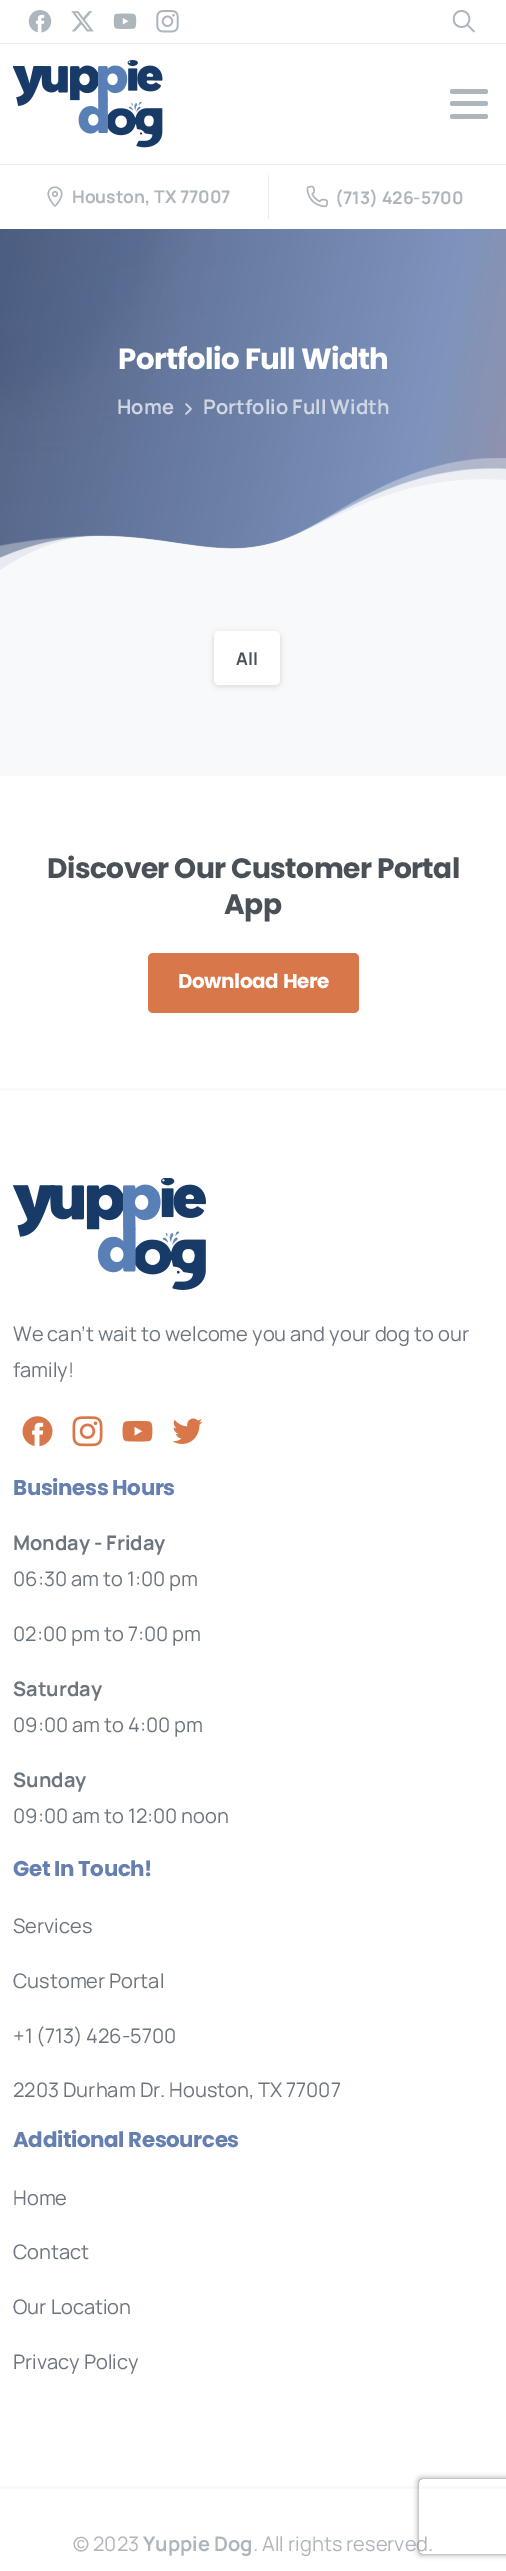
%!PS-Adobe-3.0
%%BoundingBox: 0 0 506 2571
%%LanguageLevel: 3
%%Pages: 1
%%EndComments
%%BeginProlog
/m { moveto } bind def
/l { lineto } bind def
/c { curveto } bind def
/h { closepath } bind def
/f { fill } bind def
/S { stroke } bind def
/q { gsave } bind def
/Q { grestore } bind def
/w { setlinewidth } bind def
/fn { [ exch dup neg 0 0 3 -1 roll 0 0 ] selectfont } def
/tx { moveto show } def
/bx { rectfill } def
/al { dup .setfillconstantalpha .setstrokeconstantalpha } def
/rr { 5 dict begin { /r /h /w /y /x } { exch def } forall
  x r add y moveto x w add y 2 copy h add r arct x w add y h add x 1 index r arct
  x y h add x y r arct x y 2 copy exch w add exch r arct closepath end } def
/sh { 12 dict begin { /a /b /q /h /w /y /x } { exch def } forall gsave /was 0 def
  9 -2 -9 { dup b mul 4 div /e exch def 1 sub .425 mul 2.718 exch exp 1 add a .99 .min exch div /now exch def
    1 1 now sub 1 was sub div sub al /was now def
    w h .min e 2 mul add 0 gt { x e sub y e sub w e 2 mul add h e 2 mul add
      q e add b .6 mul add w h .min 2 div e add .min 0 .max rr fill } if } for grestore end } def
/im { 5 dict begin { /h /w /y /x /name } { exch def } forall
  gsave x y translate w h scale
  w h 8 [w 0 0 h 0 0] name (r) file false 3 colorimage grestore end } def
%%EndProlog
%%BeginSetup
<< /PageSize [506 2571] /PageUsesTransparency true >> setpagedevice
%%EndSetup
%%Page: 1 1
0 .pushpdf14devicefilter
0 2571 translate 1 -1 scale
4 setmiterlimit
1 setgray
0 0 506 2571 bx
(image0.raw) 28 10 24 23 im
(image1.raw) 71 11 23 21 im
(image2.raw) 113 13 24 16 im
(image3.raw) 156 10 23 23 im
0.678 0.71 0.741 setrgbcolor
1.7 w
1 setlinecap
1 setlinejoin
461.5 27 m 472 27 472 11 461.5 11 c 451 11 451 27 461.5 27 c h 467 24.5 m 474 31.5 l S
0.914 0.925 0.937 setrgbcolor
0 43 506 1 bx
(image4.raw) 13 60 150 88 im
0.678 0.71 0.741 setrgbcolor
450 89 38 5 2.5 rr f
450 101 38 5 2.5 rr f
450 114 38 5 2.5 rr f
0.914 0.925 0.937 setrgbcolor
0 164 506 1 bx
(image5.raw) 47 186 16 21 im
/Manrope-Bold 17.5 fn
0.678 0.71 0.741 setrgbcolor
(Houston, TX 77007) 72 203 tx
0.914 0.925 0.937 setrgbcolor
268 175 1 44 bx
(image6.raw) 306 185 22 23 im
0.678 0.71 0.741 setrgbcolor
(\(713\) 426-5700) 335 204 tx
q 0 229 m 506 229 l 506 570 l 0 570 l h clip newpath
<< /ShadingType 2 /ColorSpace /DeviceRGB /Coords [-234 1190 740 1382] /Extend [true true] /Function << /FunctionType 3 /Domain [0 1] /Functions [<< /FunctionType 2 /Domain [0 1] /C0 [0.165 0.239 0.4] /C1 [0.396 0.498 0.694] /N 1 >> << /FunctionType 2 /Domain [0 1] /C0 [0.396 0.498 0.694] /C1 [0.847 0.471 0.29] /N 1 >>] /Bounds [0.5] /Encode [0 1 0 1] >> >> shfill Q
(image7.raw) 0 229 506 341 im
/Poppins-Bold 29.25 fn
1 setgray
118 369 m -0.6 0 (Portfolio Full Width) ashow
/Manrope-Bold 20 fn
0.816 0.839 0.882 setrgbcolor
(Home) 117 414 tx
0.82 0.843 0.89 setrgbcolor
1.5 w
186 414 m 191 409 l 186 404 l S
0.816 0.839 0.882 setrgbcolor
(Portfolio Full Width) 203 414 tx
(image8.raw) 0 458 506 123 im
0.973 0.976 0.98 setrgbcolor
0 581 506 195 bx
0 setgray
214 633 66 53 5 3 0.15 sh
1 setgray
214 631 66 54 5 rr f
/Manrope-Bold 17.5 fn
0.286 0.314 0.341 setrgbcolor
(All) 236 665 tx
0.973 0.976 0.98 setrgbcolor
0 1088 506 3 bx
/Poppins-Bold 28.1 fn
0.286 0.314 0.341 setrgbcolor
47 878 m -0.55 0 (Discover Our Customer Portal) ashow
224 914 m -0.55 0 (App) ashow
0.847 0.471 0.29 setrgbcolor
148 953 211 60 5 rr f
/Poppins-Bold 20 fn
1 setgray
178 988 m -0.4 0 (Download Here) ashow
(image9.raw) 13 1178 193 112 im
/Manrope-Regular 20 fn
0.424 0.459 0.49 setrgbcolor
(We can’t wait to welcome you and your dog to our) 13 1341 tx
(family!) 13 1377 tx
(image10.raw) 22 1416 31 31 im
(image11.raw) 72 1416 31 31 im
(image12.raw) 122 1420 31 22 im
(image13.raw) 172 1418 31 26 im
/Poppins-Bold 21.4 fn
0.396 0.498 0.694 setrgbcolor
13 1495 m -0.4 0 (Business Hours) ashow
/Manrope-Bold 20 fn
0.424 0.459 0.49 setrgbcolor
(Monday - Friday) 13 1550 tx
/Manrope-Regular 20 fn
(06:30 am to 1:00 pm) 13 1586 tx
(02:00 pm to 7:00 pm) 13 1641 tx
/Manrope-Bold 20 fn
(Saturday) 13 1696 tx
/Manrope-Regular 20 fn
(09:00 am to 4:00 pm) 13 1732 tx
/Manrope-Bold 20 fn
(Sunday) 13 1787 tx
/Manrope-Regular 20 fn
(09:00 am to 12:00 noon) 13 1823 tx
/Poppins-Bold 21.4 fn
0.396 0.498 0.694 setrgbcolor
13 1876 m -0.4 0 (Get In Touch!) ashow
/Manrope-Regular 20 fn
0.424 0.459 0.49 setrgbcolor
(Services) 13 1933 tx
(Customer Portal) 13 1988 tx
(+1 \(713\) 426-5700) 13 2043 tx
(2203 Durham Dr. Houston, TX 77007) 13 2097 tx
/Poppins-Bold 21.4 fn
0.396 0.498 0.694 setrgbcolor
13 2147 m -0.4 0 (Additional Resources) ashow
/Manrope-Regular 20 fn
0.424 0.459 0.49 setrgbcolor
(Home) 13 2205 tx
(Contact) 13 2259 tx
(Our Location) 13 2314 tx
(Privacy Policy) 13 2369 tx
0.973 0.976 0.98 setrgbcolor
0 2486 506 3 bx
0.678 0.71 0.741 setrgbcolor
(© 2023) 73 2551 tx
/Manrope-Bold 20 fn
(Yuppie Dog) 143 2551 tx
/Manrope-Regular 20 fn
(. All rights reserved.) 253 2551 tx
q
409 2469 m 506 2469 l 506 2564 l 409 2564 l h 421.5 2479 m 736.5 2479 l 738 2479 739 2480 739 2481.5 c 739 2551.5 l 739 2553 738 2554 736.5 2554 c 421.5 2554 l 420 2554 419 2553 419 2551.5 c 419 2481.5 l 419 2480 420 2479 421.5 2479 c h eoclip newpath
0.502 setgray
419 2479 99 75 2.5 3 1 sh
Q
.poppdf14devicefilter showpage
%%EOF
